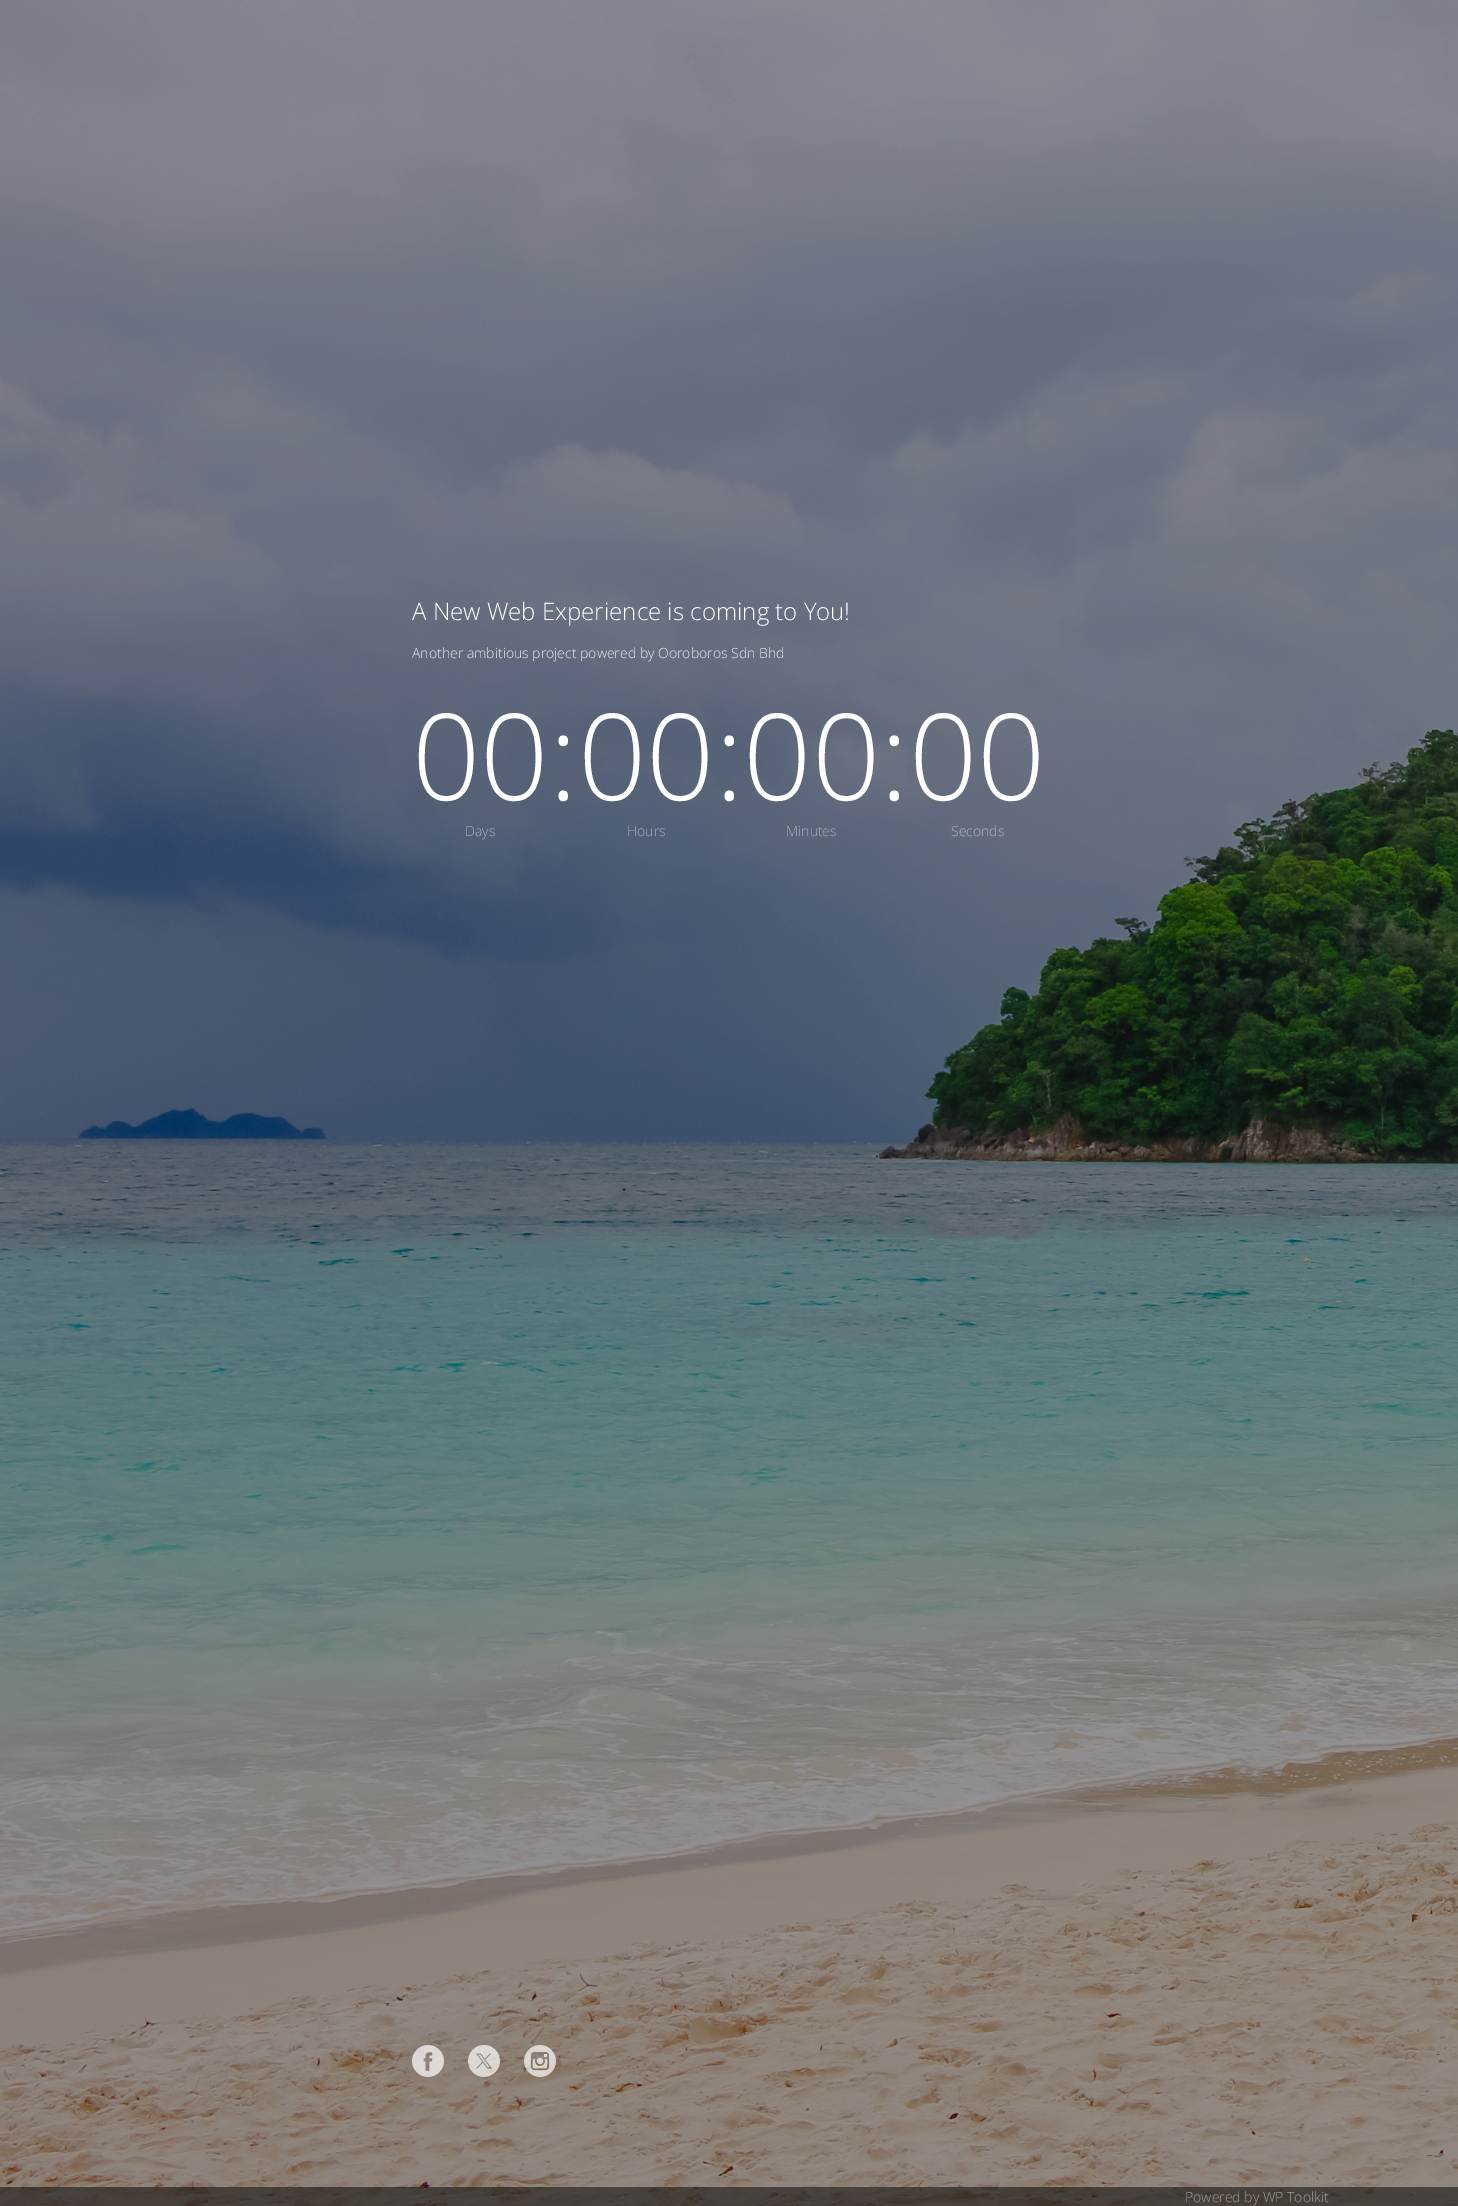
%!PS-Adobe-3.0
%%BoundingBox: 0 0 1458 2206
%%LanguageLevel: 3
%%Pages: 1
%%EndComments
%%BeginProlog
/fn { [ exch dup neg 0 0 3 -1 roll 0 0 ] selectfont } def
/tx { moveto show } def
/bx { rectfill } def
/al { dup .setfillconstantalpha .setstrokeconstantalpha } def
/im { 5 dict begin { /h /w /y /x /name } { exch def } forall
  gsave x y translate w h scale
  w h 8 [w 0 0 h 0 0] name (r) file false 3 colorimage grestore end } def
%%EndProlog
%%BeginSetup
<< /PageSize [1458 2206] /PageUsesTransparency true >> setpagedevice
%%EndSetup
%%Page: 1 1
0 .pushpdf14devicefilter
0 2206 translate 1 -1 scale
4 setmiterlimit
1 setgray
0 0 1458 2206 bx
(image0.raw) 0 0 1458 2206 im
/OpenSans-Light 24 fn
(A New Web Experience is coming to You!) 412 620 tx
/OpenSans-Light 14 fn
0.91 0.914 0.925 setrgbcolor
(Another ambitious project powered by Ooroboros Sdn Bhd) 412 658 tx
/OpenSans-Light 120 fn
1 setgray
(00:00:00:00) 412 800 tx
/OpenSans-Light 14 fn
0.659 0.686 0.729 setrgbcolor
(Days) 465 836 tx
(Hours) 627 836 tx
(Minutes) 786 836 tx
0.69 0.71 0.745 setrgbcolor
(Seconds) 951 836 tx
(image1.raw) 412 2045 32 32 im
(image2.raw) 468 2045 32 32 im
(image3.raw) 524 2045 32 32 im
0.5 al
0 setgray
0 2187 1458 19 bx
1 al
0.635 0.624 0.612 setrgbcolor
(Powered by WP Toolkit) 1185 2202 tx
.poppdf14devicefilter showpage
%%EOF
